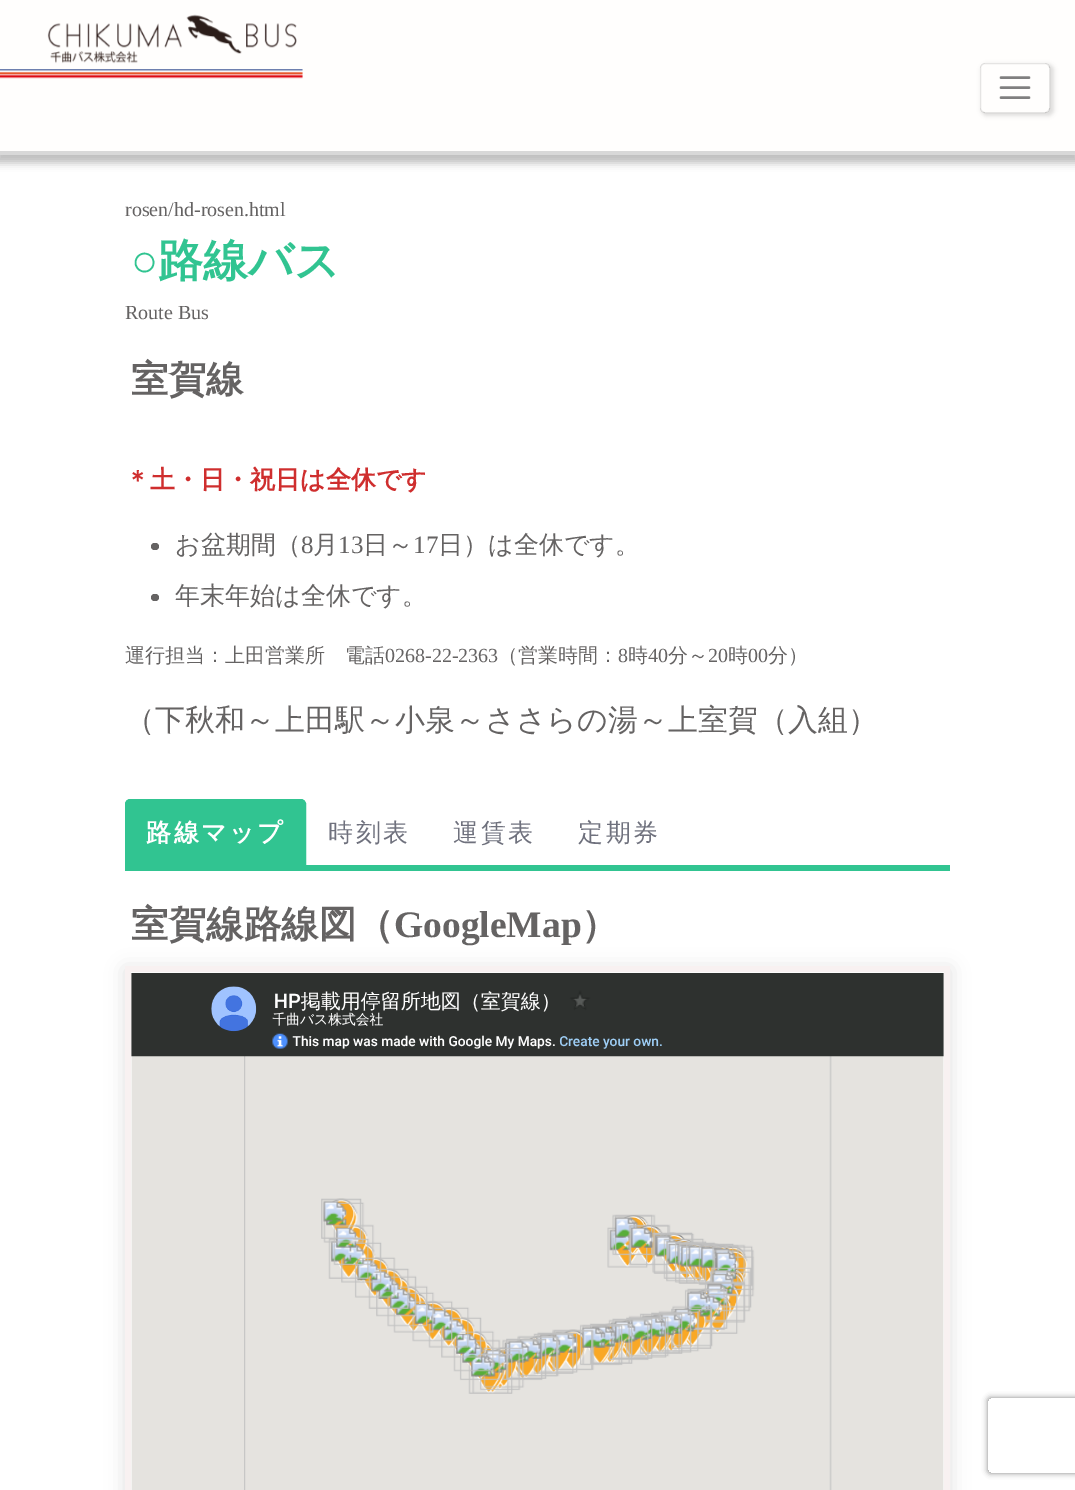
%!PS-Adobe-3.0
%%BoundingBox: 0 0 1075 1490
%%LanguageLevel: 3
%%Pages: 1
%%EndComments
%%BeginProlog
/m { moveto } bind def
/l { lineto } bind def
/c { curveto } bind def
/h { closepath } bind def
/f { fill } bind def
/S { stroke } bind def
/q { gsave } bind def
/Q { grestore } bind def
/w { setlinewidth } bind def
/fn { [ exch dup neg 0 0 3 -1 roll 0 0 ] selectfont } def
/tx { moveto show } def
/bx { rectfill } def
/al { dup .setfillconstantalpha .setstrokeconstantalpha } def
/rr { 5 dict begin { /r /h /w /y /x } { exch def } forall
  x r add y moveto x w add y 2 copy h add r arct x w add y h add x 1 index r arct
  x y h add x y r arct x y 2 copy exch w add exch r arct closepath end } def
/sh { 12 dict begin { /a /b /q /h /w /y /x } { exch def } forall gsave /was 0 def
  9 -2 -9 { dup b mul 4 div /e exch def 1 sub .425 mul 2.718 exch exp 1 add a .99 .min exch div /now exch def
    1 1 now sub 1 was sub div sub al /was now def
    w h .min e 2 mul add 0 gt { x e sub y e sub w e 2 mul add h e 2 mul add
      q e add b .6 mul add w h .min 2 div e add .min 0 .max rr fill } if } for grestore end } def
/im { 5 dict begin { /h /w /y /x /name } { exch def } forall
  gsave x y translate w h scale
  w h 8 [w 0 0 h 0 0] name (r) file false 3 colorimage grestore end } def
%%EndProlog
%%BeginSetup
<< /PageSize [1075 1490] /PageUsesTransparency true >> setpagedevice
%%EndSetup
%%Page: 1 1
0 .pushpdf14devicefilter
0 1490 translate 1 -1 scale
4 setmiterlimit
1 setgray
0 0 1075 1490 bx
0 setgray
-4 0 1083 163 0 4 0.25 sh
1 0.996 0.992 setrgbcolor
0 0 1075 151 bx
0.847 setgray
0 151 1075 4 bx
(image0.raw) 0 14 303 65 im
q
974 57 m 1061 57 l 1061 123 l 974 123 l h 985 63 m 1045 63 l 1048 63 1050 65 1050 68 c 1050 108 l 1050 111 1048 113 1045 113 c 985 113 l 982 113 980 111 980 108 c 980 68 l 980 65 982 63 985 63 c h eoclip newpath
0.435 0.427 0.427 setrgbcolor
981 64 73 52 6 2 0.22 sh
Q
0.1 al
0 setgray
980.5 63.5 69 49 4.5 rr S
1 al
0.502 0.498 0.498 setrgbcolor
2.5 w
1 setlinecap
1001 77.5 m 1029 77.5 l 1001 87.5 m 1029 87.5 l 1001 97.5 m 1029 97.5 l S
/LiberationSerif-Regular 20 fn
0.396 0.388 0.388 setrgbcolor
(rosen/hd-rosen.html) 125 216 tx
/LiberationSerif-Bold 45 fn
0.192 0.769 0.569 setrgbcolor
(○) 131 276 tx
/WenQuanYiZenHei-Bold 45 fn
(路線バス) 158 276 tx
/LiberationSerif-Regular 20 fn
0.396 0.388 0.388 setrgbcolor
(Route Bus) 125 319 tx
/WenQuanYiZenHei-Bold 37.5 fn
(室賀線) 131 392 tx
/WenQuanYiZenHei-Bold 25 fn
0.812 0.18 0.18 setrgbcolor
(＊土・日・祝日は全休です) 125 488 tx
0.396 0.388 0.388 setrgbcolor
151 543 8 7 3.5 rr f
/WenQuanYiZenHei-Medium 25 fn
(お盆期間（) 175 553 tx
/LiberationSerif-Regular 25 fn
(8) 301 553 tx
/WenQuanYiZenHei-Medium 25 fn
(月) 313 553 tx
/LiberationSerif-Regular 25 fn
(13) 338 553 tx
/WenQuanYiZenHei-Medium 25 fn
(日～) 363 553 tx
/LiberationSerif-Regular 25 fn
(17) 413 553 tx
/WenQuanYiZenHei-Medium 25 fn
(日）は全休です。) 438 553 tx
151 594 8 7 3.5 rr f
(年末年始は全休です。) 175 604 tx
/WenQuanYiZenHei-Medium 20 fn
(運行担当：上田営業所　電話) 125 662 tx
/LiberationSerif-Regular 20 fn
(0268-22-2363) 385 662 tx
/WenQuanYiZenHei-Medium 20 fn
(（営業時間：) 498 662 tx
/LiberationSerif-Regular 20 fn
(8) 618 662 tx
/WenQuanYiZenHei-Medium 20 fn
(時) 628 662 tx
/LiberationSerif-Regular 20 fn
(40) 648 662 tx
/WenQuanYiZenHei-Medium 20 fn
(分～) 668 662 tx
/LiberationSerif-Regular 20 fn
(20) 708 662 tx
/WenQuanYiZenHei-Medium 20 fn
(時) 728 662 tx
/LiberationSerif-Regular 20 fn
(00) 748 662 tx
/WenQuanYiZenHei-Medium 20 fn
(分）) 768 662 tx
/WenQuanYiZenHei-Medium 30 fn
(（下秋和～上田駅～小泉～ささらの湯～上室賀（入組）) 125 730 tx
0.192 0.769 0.569 setrgbcolor
125 865 825 6 bx
130 799.5 m 301 799.5 l 303.5 799.5 305.5 801.5 305.5 804 c 305.5 865.5 l 125.5 865.5 l 125.5 804 l 125.5 801.5 127.5 799.5 130 799.5 c h q f Q
1 w
0 setlinecap
S
/WenQuanYiZenHei-Bold 25 fn
1 setgray
146 841 m 2.5 0 (路線マップ) ashow
/WenQuanYiZenHei-Medium 25 fn
0.435 0.443 0.49 setrgbcolor
328 841 m 2.5 0 (時刻表) ashow
453 841 m 2.5 0 (運賃表) ashow
578 841 m 2.5 0 (定期券) ashow
/WenQuanYiZenHei-Bold 37.5 fn
0.396 0.388 0.388 setrgbcolor
(室賀線路線図（) 131 937 tx
/LiberationSerif-Bold 37.5 fn
(GoogleMap) 394 937 tx
/WenQuanYiZenHei-Bold 37.5 fn
(）) 581 937 tx
0 setgray
125 969 825 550 0 9.5 0.12 sh
0.973 0.945 0.945 setrgbcolor
6 w
128 969 819 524 rectstroke
(image1.raw) 131 972 813 518 im
q
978 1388 m 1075 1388 l 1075 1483 l 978 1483 l h 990.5 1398 m 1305.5 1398 l 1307 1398 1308 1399 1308 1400.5 c 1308 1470.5 l 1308 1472 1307 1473 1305.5 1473 c 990.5 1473 l 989 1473 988 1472 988 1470.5 c 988 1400.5 l 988 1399 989 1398 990.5 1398 c h eoclip newpath
0.502 setgray
988 1398 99 75 2.5 3 1 sh
Q
.poppdf14devicefilter showpage
%%EOF
